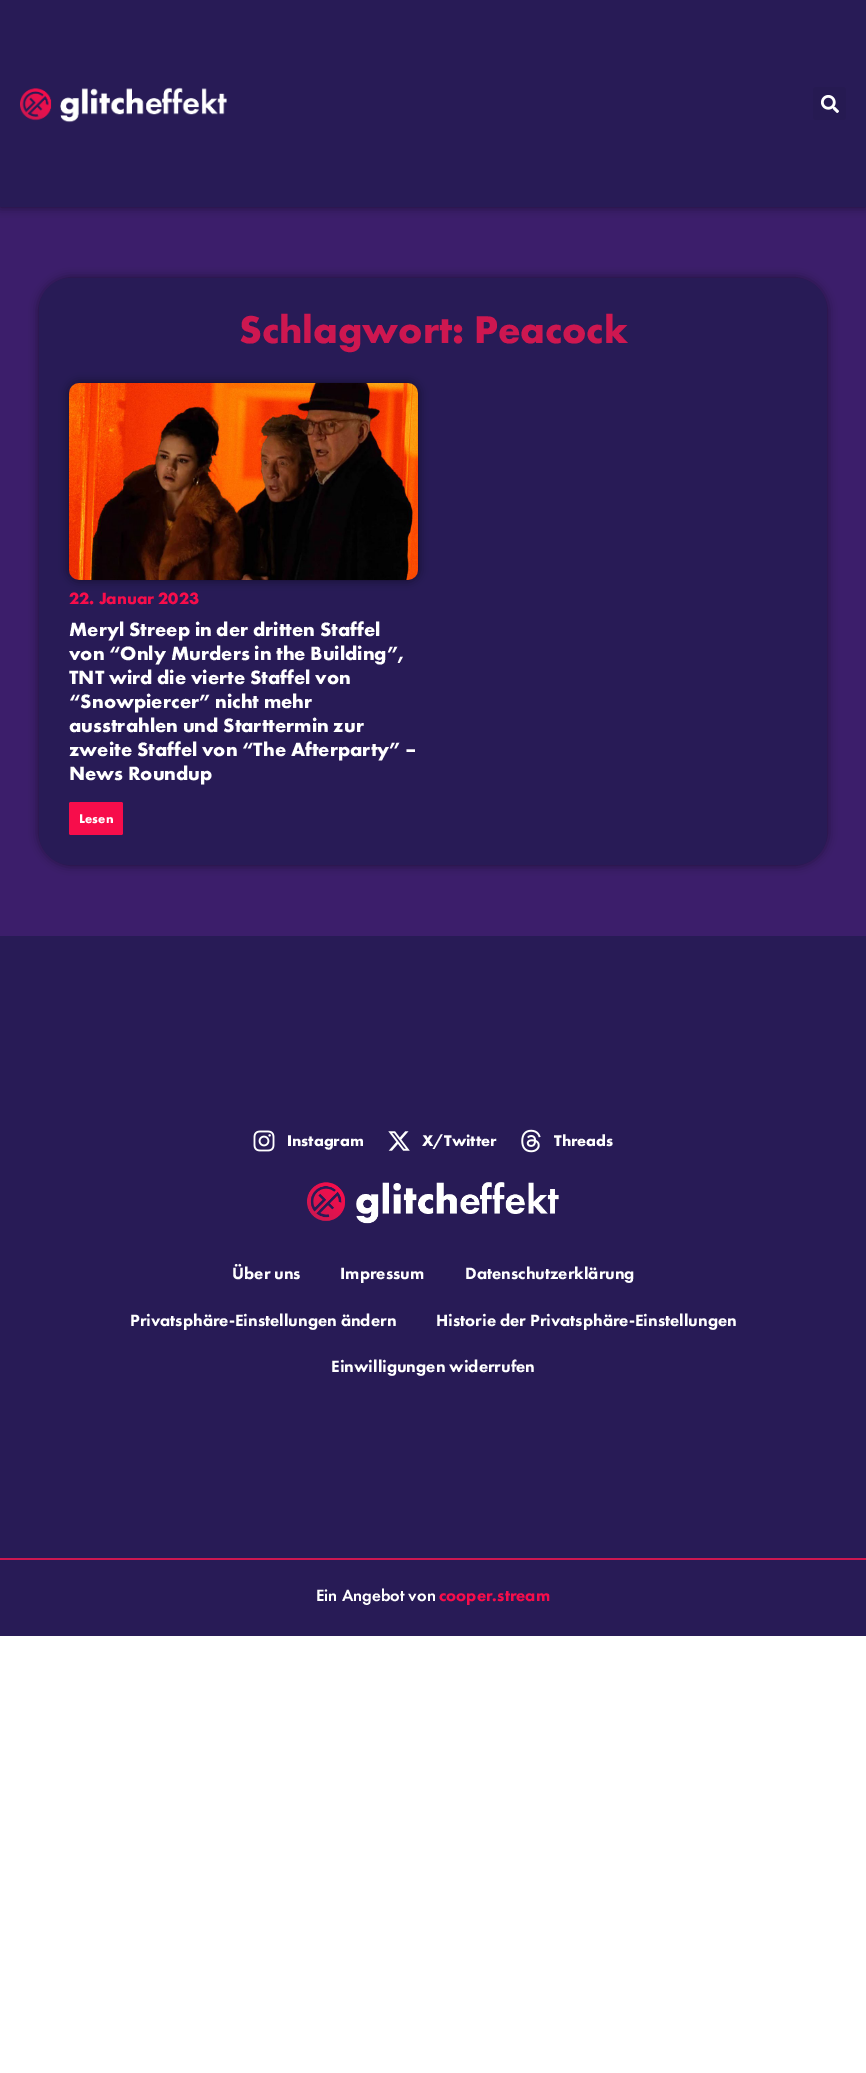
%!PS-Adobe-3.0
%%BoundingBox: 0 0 866 2073
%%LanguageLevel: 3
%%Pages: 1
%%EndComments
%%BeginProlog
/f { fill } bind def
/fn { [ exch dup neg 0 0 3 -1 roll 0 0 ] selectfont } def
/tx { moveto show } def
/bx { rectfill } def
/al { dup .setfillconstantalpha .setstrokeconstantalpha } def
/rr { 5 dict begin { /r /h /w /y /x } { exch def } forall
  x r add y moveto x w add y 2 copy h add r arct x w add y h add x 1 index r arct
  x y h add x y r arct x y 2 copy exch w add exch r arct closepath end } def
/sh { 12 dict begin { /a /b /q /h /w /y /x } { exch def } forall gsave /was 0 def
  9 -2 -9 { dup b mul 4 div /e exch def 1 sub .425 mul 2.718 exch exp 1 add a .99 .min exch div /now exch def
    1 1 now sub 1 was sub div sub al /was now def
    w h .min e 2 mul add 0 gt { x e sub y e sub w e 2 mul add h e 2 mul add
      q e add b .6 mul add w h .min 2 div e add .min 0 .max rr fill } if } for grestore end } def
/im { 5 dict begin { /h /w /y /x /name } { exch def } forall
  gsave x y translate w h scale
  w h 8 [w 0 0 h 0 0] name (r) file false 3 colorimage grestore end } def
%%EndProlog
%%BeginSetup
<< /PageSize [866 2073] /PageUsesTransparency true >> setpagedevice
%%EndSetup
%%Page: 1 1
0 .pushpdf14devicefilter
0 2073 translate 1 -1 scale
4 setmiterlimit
1 setgray
0 0 866 2073 bx
0.235 0.118 0.42 setrgbcolor
0 207 866 729 bx
0 setgray
0 0 866 207 0 5 0.5 sh
0.157 0.106 0.337 setrgbcolor
0 0 866 207 bx
(image0.raw) 20 87 207 36 im
0.149 0.102 0.322 setrgbcolor
813 87 33 33 3 rr f
(image1.raw) 821 95 18 18 im
0 setgray
39 278 788 587 32 5 0.5 sh
0.157 0.106 0.337 setrgbcolor
39 278 788 587 32 rr f
/FuturaPT-Bold 40 fn
0.808 0.09 0.314 setrgbcolor
(Schlagwort: Peacock) 239 343 tx
0 setgray
69 383 349 197 10 5 0.5 sh
(image2.raw) 69 383 349 197 im
/FuturaPT-Bold 17 fn
0.969 0.051 0.294 setrgbcolor
(22. Januar 2023) 69 604 tx
/FuturaPT-Bold 20 fn
1 setgray
(Meryl Streep in der dritten Staffel) 69 636 tx
(von “Only Murders in the Building”,) 69 660 tx
(TNT wird die vierte Staffel von) 69 684 tx
(“Snowpiercer” nicht mehr) 69 708 tx
(ausstrahlen und Starttermin zur) 69 732 tx
(zweite Staffel von “The Afterparty” –) 69 756 tx
(News Roundup) 69 780 tx
0.969 0.051 0.294 setrgbcolor
69 802 54 33 2 rr f
/FuturaPT-Bold 13 fn
1 setgray
(Lesen) 79 823 tx
0.157 0.106 0.337 setrgbcolor
0 936 866 622 bx
(image3.raw) 253 1130 22 22 im
/FuturaPT-Bold 16 fn
1 setgray
(Instagram) 287 1146 tx
(image4.raw) 388 1131 22 20 im
(X/Twitter) 422 1146 tx
(image5.raw) 521 1129 20 24 im
(Threads) 554 1146 tx
(image6.raw) 307 1182 252 42 im
/FuturaPT-Black 17 fn
(Über uns) 232 1279 tx
(Impressum) 340 1279 tx
(Datenschutzerklärung) 465 1279 tx
(Privatsphäre-Einstellungen ändern) 130 1326 tx
(Historie der Privatsphäre-Einstellungen) 436 1326 tx
(Einwilligungen widerrufen) 331 1372 tx
0.157 0.106 0.337 setrgbcolor
0 1560 866 76 bx
0.808 0.09 0.314 setrgbcolor
0 1558 866 2 bx
/FuturaPT-Medium 17 fn
1 setgray
(Ein Angebot von) 316 1601 tx
/FuturaPT-Black 17 fn
0.969 0.051 0.294 setrgbcolor
(cooper.stream) 439 1601 tx
.poppdf14devicefilter showpage
%%EOF
